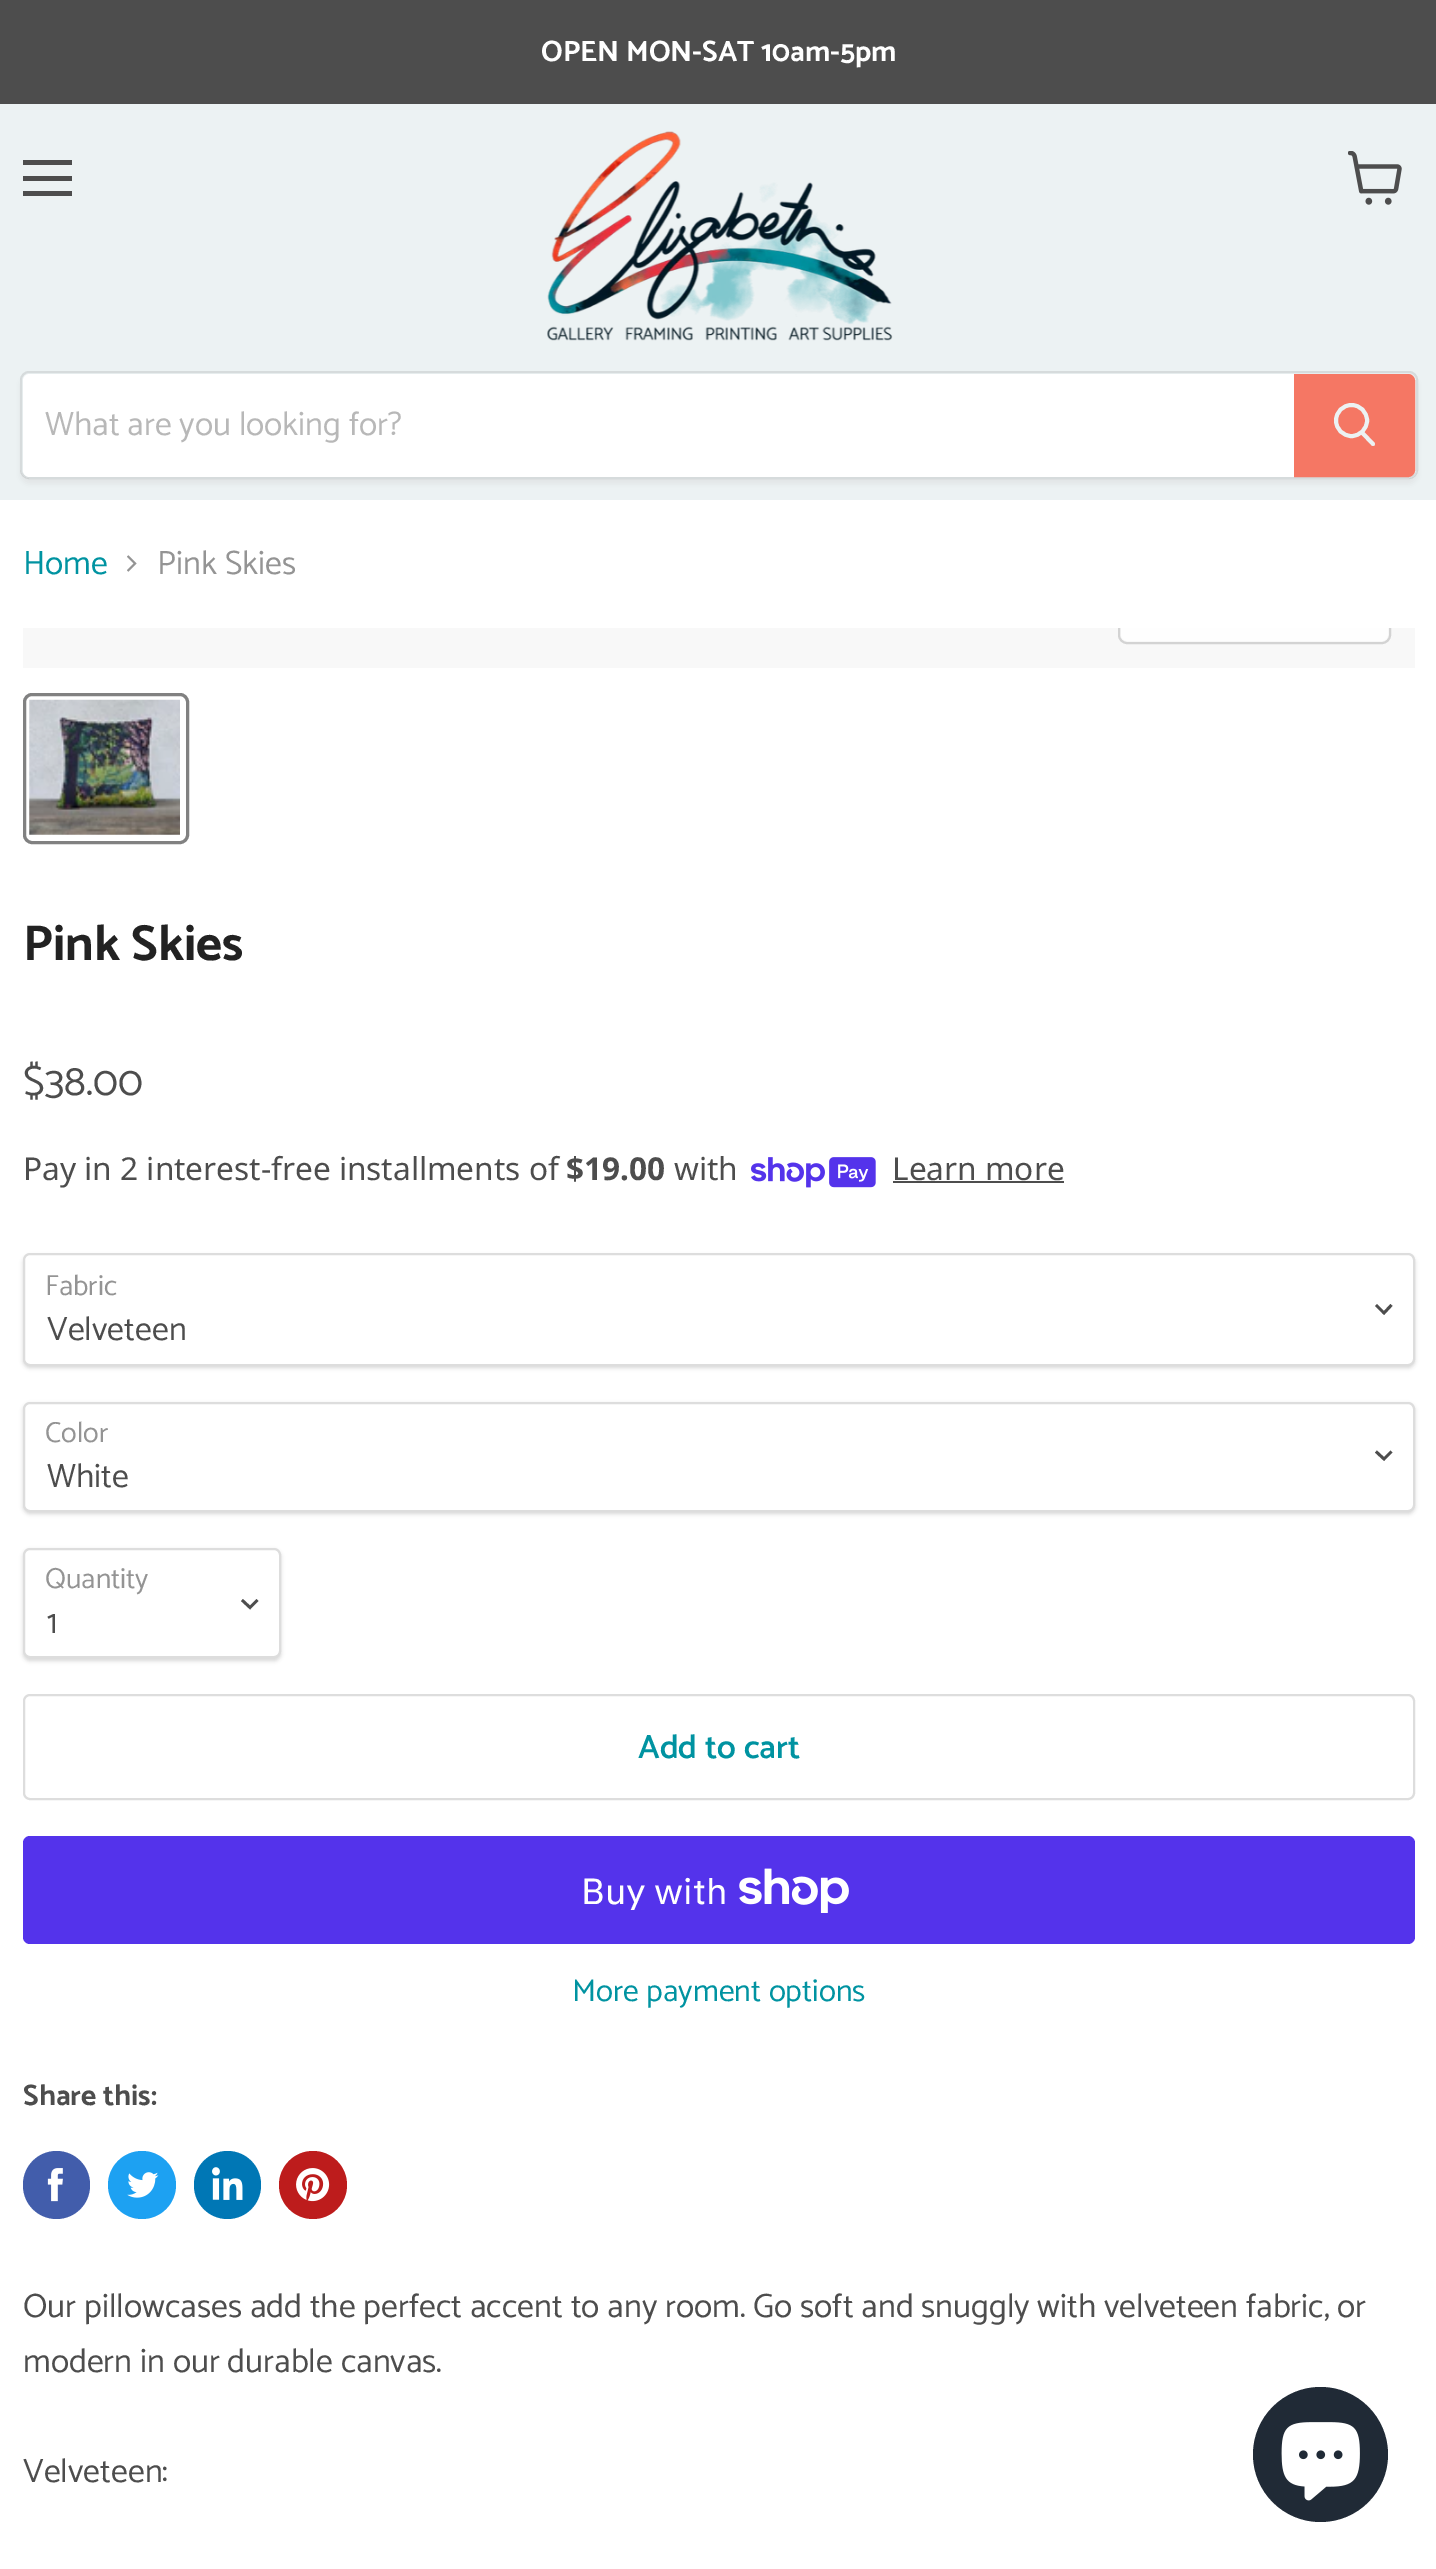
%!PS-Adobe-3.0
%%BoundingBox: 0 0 1436 2569
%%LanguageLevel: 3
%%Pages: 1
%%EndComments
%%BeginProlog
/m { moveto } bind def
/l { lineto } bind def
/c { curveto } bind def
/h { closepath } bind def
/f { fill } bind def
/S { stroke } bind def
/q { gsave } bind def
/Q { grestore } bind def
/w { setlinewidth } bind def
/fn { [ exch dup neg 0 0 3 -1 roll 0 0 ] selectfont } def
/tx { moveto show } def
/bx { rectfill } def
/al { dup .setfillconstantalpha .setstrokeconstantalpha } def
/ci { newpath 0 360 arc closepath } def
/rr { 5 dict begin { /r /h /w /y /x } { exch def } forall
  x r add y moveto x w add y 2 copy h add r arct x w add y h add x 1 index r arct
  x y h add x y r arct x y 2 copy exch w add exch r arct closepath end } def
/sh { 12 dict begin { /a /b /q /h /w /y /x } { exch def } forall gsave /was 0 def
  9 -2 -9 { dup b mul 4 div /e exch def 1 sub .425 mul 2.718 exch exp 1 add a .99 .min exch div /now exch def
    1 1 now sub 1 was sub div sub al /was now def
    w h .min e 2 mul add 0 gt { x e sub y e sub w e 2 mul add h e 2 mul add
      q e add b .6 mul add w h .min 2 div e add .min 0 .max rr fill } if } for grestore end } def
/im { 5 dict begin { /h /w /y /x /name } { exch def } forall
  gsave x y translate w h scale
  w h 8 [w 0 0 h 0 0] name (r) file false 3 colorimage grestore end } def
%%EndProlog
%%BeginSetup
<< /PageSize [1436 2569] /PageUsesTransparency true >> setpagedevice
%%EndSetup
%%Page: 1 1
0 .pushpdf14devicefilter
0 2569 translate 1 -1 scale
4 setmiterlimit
1 setgray
0 0 1436 2569 bx
0.302 setgray
0 0 1436 104 bx
/Catamaran-Bold 29.5 fn
1 setgray
(OPEN MON-SAT 10am-5pm) 541 61 tx
0.925 0.949 0.953 setrgbcolor
0 104 1436 396 bx
0.302 setgray
23 160 49 5 bx
23 176 49 5 bx
23 191 49 5 bx
(image0.raw) 1348 151 54 54 im
(image1.raw) 547 131 346 210 im
q
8 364 m 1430 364 l 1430 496 l 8 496 l h 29 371 m 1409 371 l 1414 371 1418 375 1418 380 c 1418 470 l 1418 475 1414 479 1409 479 c 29 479 l 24 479 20 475 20 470 c 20 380 l 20 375 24 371 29 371 c h eoclip newpath
0.502 setgray
20 376 1398 108 9 3.5 0.11 sh
Q
0.2 al
0.502 setgray
2 w
21 372 1396 106 8 rr S
1 al
1 setgray
30 374 m 1294 374 l 1294 477 l 30 477 l 26 477 23 474 23 470 c 23 381 l 23 377 26 374 30 374 c h f
/Catamaran-Regular 33.75 fn
0.722 setgray
(What are you looking for?) 45 435 tx
0.961 0.467 0.392 setrgbcolor
1295 375 m 1408 375 l 1411.5 375 1414 377.5 1414 381 c 1414 470 l 1414 473.5 1411.5 476 1408 476 c 1295 476 l h q f Q
S
0.925 0.949 0.953 setrgbcolor
3.9 w
1 setlinecap
1373 444 m 1362.5 433 l S
0 setlinecap
1351.5 420.5 15.5 ci S
0 0.576 0.631 setrgbcolor
(Home) 23 574 tx
(image2.raw) 127 555 10 17 im
0.58 setgray
(Pink Skies) 157 574 tx
0.973 setgray
23 628 1392 40 bx
q
23 628 1392 40 rectclip
0.827 setgray
2 w
1119 577 271 66 8 rr S
Q
0.996 setgray
1121 628 m 1388 628 l 1388 634 l 1388 638 1385 641 1381 641 c 1128 641 l 1124 641 1121 638 1121 634 c h f
0.506 setgray
3 w
24.5 694.5 163 148 7.5 rr S
(image3.raw) 29 699 151 136 im
/Catamaran-Bold 50.5 fn
0.133 setgray
(Pink Skies) 23 960 tx
/Catamaran-Regular 42 fn
0.302 setgray
($38.00) 23 1095 tx
/NotoSans-Regular 31.6 fn
(Pay in 2 interest-free installments of) 23 1180 tx
/NotoSans-Bold 31.6 fn
($19.00) 566 1180 tx
/NotoSans-Regular 31.6 fn
(with) 674 1180 tx
(image4.raw) 751 1157 125 31 im
(Learn more) 892 1180 tx
893 1181 171 2 bx
0 setgray
23 1256 1392 112 7 2 0.15 sh
1 setgray
24 1254 1390 111 6 rr q f Q
0.867 setgray
2 w
S
/Catamaran-Regular 29 fn
0.58 setgray
(Fabric) 45 1295 tx
0.302 setgray
2.8 w
2 setlinecap
1384 1313 m 1390.5 1306 l 1384 1313 m 1377 1306 l S
/Catamaran-Regular 33.75 fn
(Velveteen) 47 1340 tx
0 setgray
23 1404 1392 110 7 2 0.15 sh
1 setgray
24 1403 1390 108 6 rr q f Q
0.867 setgray
2 w
0 setlinecap
S
/Catamaran-Regular 29 fn
0.58 setgray
(Color) 45 1442 tx
0.302 setgray
2.8 w
2 setlinecap
1384 1459 m 1390.5 1452.5 l 1384 1459 m 1377 1452.5 l S
/Catamaran-Regular 33.75 fn
(White) 47 1487 tx
0 setgray
23 1550 258 111 7 2 0.15 sh
1 setgray
24 1549 256 108 6 rr q f Q
0.867 setgray
2 w
0 setlinecap
S
/Catamaran-Regular 29 fn
0.58 setgray
(Quantity) 45 1588 tx
0.302 setgray
2.8 w
2 setlinecap
250 1607.5 m 256.5 1601 l 250 1607.5 m 243 1601 l S
/Catamaran-Regular 33.75 fn
(1) 47 1633 tx
0.867 setgray
2 w
0 setlinecap
24 1695 1390 104 6 rr S
/Catamaran-SemiBold 33.75 fn
0 0.576 0.631 setrgbcolor
(Add to cart) 638 1758 tx
0.329 0.2 0.922 setrgbcolor
23 1836 1392 108 7 rr f
/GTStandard-Regular 36 fn
1 setgray
(Buy with) 581 1904 tx
(image5.raw) 739 1868 110 45 im
/Catamaran-Regular 31.6 fn
0 0.576 0.631 setrgbcolor
(More payment options) 572 2001 tx
/Catamaran-Bold 29.5 fn
0.302 setgray
(Share this:) 23 2105 tx
0.259 0.365 0.671 setrgbcolor
23 2151 67 68 33.5 rr f
(image6.raw) 47 2168 16 34 im
0.114 0.631 0.949 setrgbcolor
142 2185 34 ci f
(image7.raw) 127 2172 32 26 im
0 0.467 0.71 setrgbcolor
194 2151 67 68 33.5 rr f
(image8.raw) 212 2167 31 33 im
0.741 0.11 0.11 setrgbcolor
313 2185 34 ci f
(image9.raw) 296 2168 34 34 im
/Catamaran-Regular 33.75 fn
0.302 setgray
(Our pillowcases add the perfect accent to any room. Go soft and snuggly with velveteen fabric, or) 23 2317 tx
(modern in our durable canvas.) 23 2372 tx
(Velveteen:) 23 2482 tx
0.125 0.165 0.212 setrgbcolor
1320.5 2454.5 67.5 ci f
(image10.raw) 1281 2422 79 79 im
.poppdf14devicefilter showpage
%%EOF
